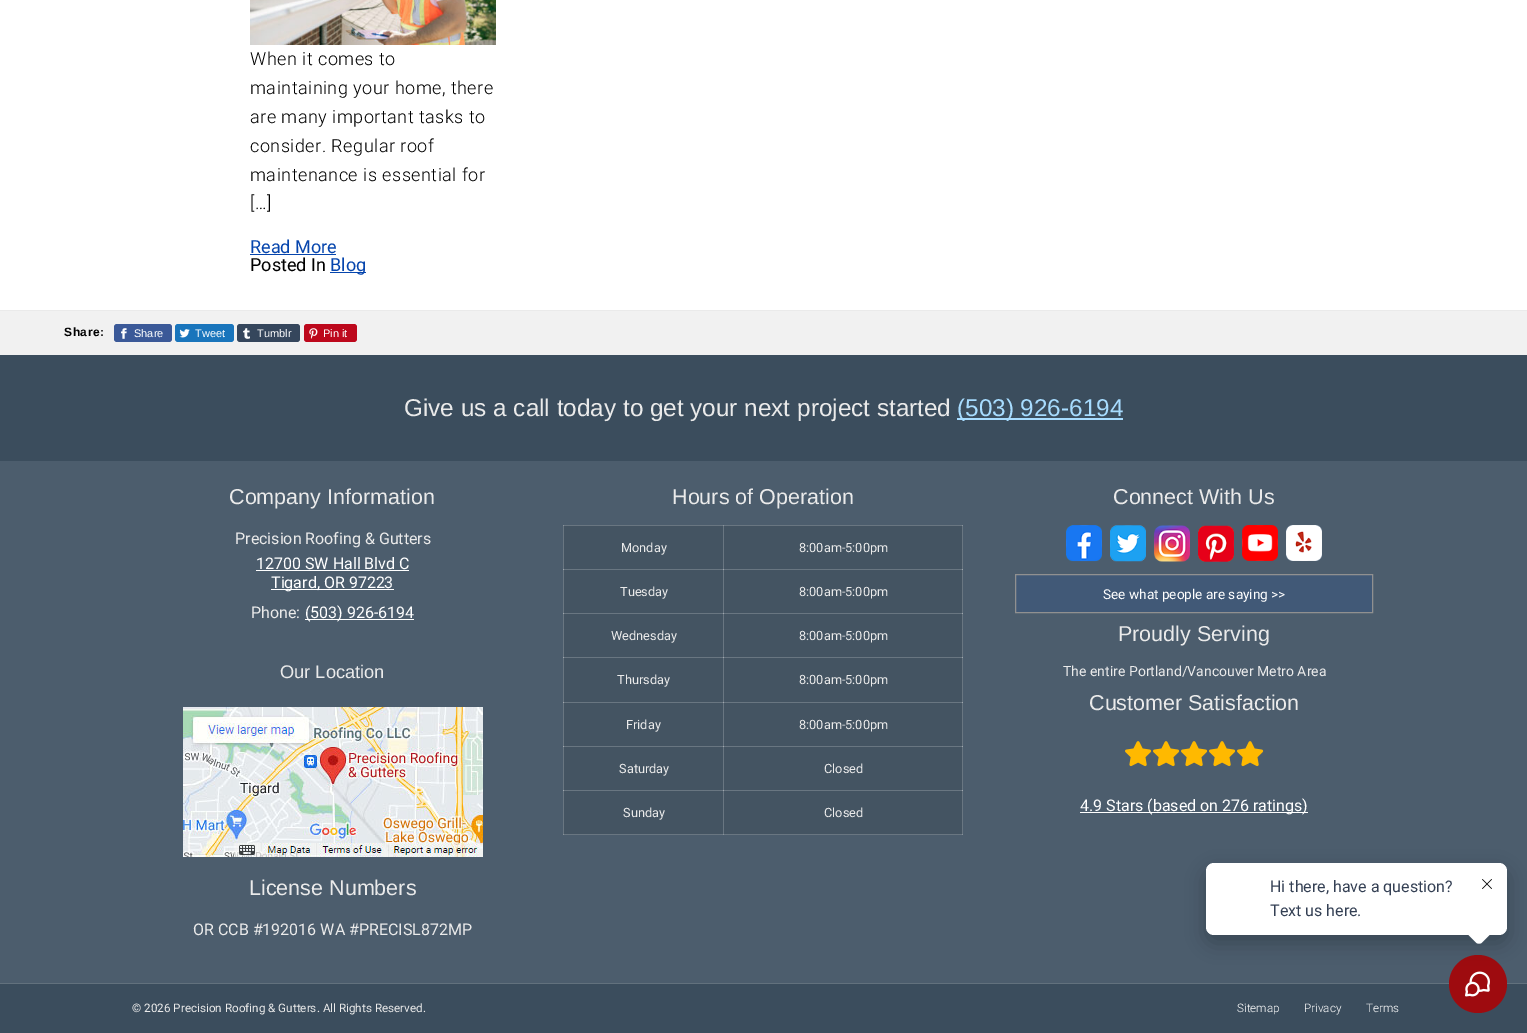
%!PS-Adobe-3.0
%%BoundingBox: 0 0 1527 1033
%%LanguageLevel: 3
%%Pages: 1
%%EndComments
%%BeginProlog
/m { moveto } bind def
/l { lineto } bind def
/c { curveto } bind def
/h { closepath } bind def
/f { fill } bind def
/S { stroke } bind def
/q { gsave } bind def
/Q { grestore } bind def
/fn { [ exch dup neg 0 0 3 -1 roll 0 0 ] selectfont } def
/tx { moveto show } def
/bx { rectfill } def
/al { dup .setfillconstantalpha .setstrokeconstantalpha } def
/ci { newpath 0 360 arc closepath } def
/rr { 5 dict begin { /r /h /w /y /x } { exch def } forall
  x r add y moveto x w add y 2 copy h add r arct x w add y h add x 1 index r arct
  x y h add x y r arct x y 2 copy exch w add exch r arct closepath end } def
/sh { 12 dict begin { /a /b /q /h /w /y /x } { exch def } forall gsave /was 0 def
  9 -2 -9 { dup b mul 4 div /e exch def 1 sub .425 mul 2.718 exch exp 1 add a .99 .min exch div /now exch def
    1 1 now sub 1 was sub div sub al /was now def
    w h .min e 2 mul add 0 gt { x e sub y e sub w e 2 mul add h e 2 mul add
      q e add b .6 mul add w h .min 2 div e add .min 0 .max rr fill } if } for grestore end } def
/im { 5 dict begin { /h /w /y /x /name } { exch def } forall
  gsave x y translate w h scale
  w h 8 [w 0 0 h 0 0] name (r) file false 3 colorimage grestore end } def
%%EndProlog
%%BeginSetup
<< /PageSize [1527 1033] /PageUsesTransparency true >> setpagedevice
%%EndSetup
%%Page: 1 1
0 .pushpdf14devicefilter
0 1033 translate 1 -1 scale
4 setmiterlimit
1 setgray
0 0 1527 1033 bx
(image0.raw) 250 0 246 45 im
/Roboto-Light 18 fn
0 setgray
250 65 m 0.5 0 (When it comes to) ashow
250 94 m 0.5 0 (maintaining your home, there) ashow
250 123 m 0.5 0 (are many important tasks to) ashow
250 152 m 0.5 0 (consider. Regular roof) ashow
250 181 m 0.5 0 (maintenance is essential for) ashow
250 209 m 0.5 0 ([…]) ashow
/Roboto-Regular 18 fn
0.024 0.271 0.678 setrgbcolor
(Read More) 250 253 tx
250 254 86 1 bx
0 setgray
(Posted In) 250 271 tx
0.024 0.271 0.678 setrgbcolor
330 272 36 1 bx
(Blog) 330 271 tx
0.945 setgray
0 311 1527 44 bx
0.918 setgray
0 310 1527 1 bx
/LiberationSans-Bold 12 fn
0 setgray
64 336 m 0.5 0 (Share:) ashow
0.231 0.349 0.596 setrgbcolor
114 324 58 18 3 rr f
(image1.raw) 121 328 6 11 im
/LiberationSans-Regular 11 fn
1 setgray
(Share) 134 337 tx
0.098 0.459 0.737 setrgbcolor
175 324 59 18 3 rr f
(image2.raw) 179 329 11 9 im
1 setgray
(Tweet) 195 337 tx
0.208 0.275 0.361 setrgbcolor
237 324 63 18 3 rr f
(image3.raw) 243 328 7 11 im
1 setgray
(Tumblr) 257 337 tx
0.741 0.031 0.11 setrgbcolor
304 324 53 18 3 rr f
(image4.raw) 309 328 9 11 im
1 setgray
(Pin it) 323 337 tx
0.231 0.302 0.365 setrgbcolor
0 355 1527 106 bx
/LiberationSans-Regular 24.3 fn
0.918 setgray
(Give us a call today to get your next project started) 404 416 tx
0.655 0.863 1 setrgbcolor
957 418 166 2 bx
(\(503\) 926-6194) 957 416 tx
0.298 0.365 0.427 setrgbcolor
0 461 1527 522 bx
/LiberationSans-Regular 21.5 fn
0.918 setgray
(Company Information) 229 504 tx
/Roboto-Regular 16 fn
(Precision Roofing & Gutters) 235 544 tx
1 setgray
(12700 SW Hall Blvd C) 256 569 tx
256 570 153 1 bx
271 589 123 1 bx
(Tigard, OR 97223) 271 588 tx
0.918 setgray
(Phone:) 251 618 tx
1 setgray
305 619 109 1 bx
(\(503\) 926-6194) 305 618 tx
/LiberationSans-Regular 18.25 fn
0.918 setgray
(Our Location) 280 678 tx
(image5.raw) 183 707 300 150 im
/LiberationSans-Regular 21.5 fn
(License Numbers) 249 895 tx
/Roboto-Regular 16 fn
(OR CCB #192016 WA #PRECISL872MP) 193 935 tx
/LiberationSans-Regular 21.5 fn
(Hours of Operation) 672 504 tx
0.267 0.329 0.384 setrgbcolor
564 526 398 308 bx
0.412 0.463 0.506 setrgbcolor
723 525 1 310 bx
563 525 1 310 bx
962 525 1 266 bx
563 834 400 1 bx
0.529 0.569 0.604 setrgbcolor
723 834 1 1 bx
563 834 1 1 bx
0.412 0.463 0.506 setrgbcolor
962 790 1 45 bx
0.529 0.569 0.604 setrgbcolor
962 834 1 1 bx
0.412 0.463 0.506 setrgbcolor
563 525 400 1 bx
0.529 0.569 0.604 setrgbcolor
723 525 1 1 bx
563 525 1 1 bx
962 525 1 1 bx
/Roboto-Regular 12.75 fn
0.918 setgray
(Monday) 621 552 tx
(8:00am-5:00pm) 799 552 tx
0.412 0.463 0.506 setrgbcolor
563 569 400 1 bx
0.624 0.655 0.682 setrgbcolor
723 569 1 1 bx
563 569 1 1 bx
962 569 1 1 bx
0.918 setgray
(Tuesday) 620 596 tx
(8:00am-5:00pm) 799 596 tx
0.412 0.463 0.506 setrgbcolor
563 613 400 1 bx
0.624 0.655 0.682 setrgbcolor
723 613 1 1 bx
563 613 1 1 bx
962 613 1 1 bx
0.918 setgray
(Wednesday) 611 640 tx
(8:00am-5:00pm) 799 640 tx
0.412 0.463 0.506 setrgbcolor
563 657 400 1 bx
0.624 0.655 0.682 setrgbcolor
723 657 1 1 bx
563 657 1 1 bx
962 657 1 1 bx
0.918 setgray
(Thursday) 617 684 tx
(8:00am-5:00pm) 799 684 tx
0.412 0.463 0.506 setrgbcolor
563 702 400 1 bx
0.624 0.655 0.682 setrgbcolor
723 702 1 1 bx
563 702 1 1 bx
962 702 1 1 bx
0.918 setgray
(Friday) 626 729 tx
(8:00am-5:00pm) 799 729 tx
0.412 0.463 0.506 setrgbcolor
563 746 400 1 bx
0.624 0.655 0.682 setrgbcolor
723 746 1 1 bx
563 746 1 1 bx
962 746 1 1 bx
0.918 setgray
(Saturday) 619 773 tx
(Closed) 824 773 tx
0.412 0.463 0.506 setrgbcolor
563 790 400 1 bx
0.624 0.655 0.682 setrgbcolor
723 790 1 1 bx
563 790 1 1 bx
962 790 1 1 bx
0.918 setgray
(Sunday) 623 817 tx
(Closed) 824 817 tx
/LiberationSans-Regular 21.5 fn
(Connect With Us) 1113 504 tx
(image6.raw) 1066 525 36 37 im
(image7.raw) 1110 525 36 37 im
(image8.raw) 1154 525 36 37 im
(image9.raw) 1198 525 36 37 im
(image10.raw) 1242 525 36 36 im
(image11.raw) 1286 525 36 36 im
0.255 0.349 0.467 setrgbcolor
1015.5 574.5 m 1372.5 574.5 l 1372.5 612.5 l 1015.5 612.5 l h q f Q
0.565 setgray
S
/Roboto-Regular 13.6 fn
1 setgray
(See what people are saying >>) 1103 599 tx
/LiberationSans-Regular 21.5 fn
0.918 setgray
(Proudly Serving) 1118 641 tx
/Roboto-Regular 14 fn
(The entire Portland/Vancouver Metro Area) 1063 676 tx
/LiberationSans-Regular 21.5 fn
(Customer Satisfaction) 1089 710 tx
(image12.raw) 1125 741 27 26 im
(image12.raw) 1153 741 27 26 im
(image12.raw) 1181 741 27 26 im
(image12.raw) 1209 741 27 26 im
(image12.raw) 1237 741 27 26 im
1 setgray
1080 812 228 1 bx
/Roboto-Regular 16 fn
(4.9 Stars \(based on 276 ratings\)) 1080 811 tx
0.231 0.302 0.365 setrgbcolor
0 984 1527 49 bx
0.384 0.443 0.49 setrgbcolor
0 983 1527 1 bx
/Roboto-Regular 11.7 fn
0.918 setgray
(© 2026 Precision Roofing & Gutters. All Rights Reserved.) 132 1012 tx
/Roboto-Light 11.7 fn
1 setgray
(Sitemap) 1237 1012 tx
(Privacy) 1304 1012 tx
(Terms) 1366 1012 tx
0.62 0.043 0.059 setrgbcolor
1478 984 29 ci f
(image14.raw) 1465 971 25 26 im
0 setgray
1206 871 301 72 8 10 0.24 sh
1 setgray
1206 863 301 72 8 rr f
/Roboto-Regular 16 fn
0.204 0.251 0.329 setrgbcolor
(Hi there, have a question?) 1270 892 tx
(Text us here.) 1270 916 tx
1 setgray
1482 919.5 m 1490.5 928 l 1492 929.5 1492 932.5 1490.5 934 c 1482 942.5 l 1480.5 944 1477.5 944 1476 942.5 c 1467.5 934 l 1466 932.5 1466 929.5 1467.5 928 c 1476 919.5 l 1477.5 918 1480.5 918 1482 919.5 c h f
(image13.raw) 1482 879 10 10 im
.poppdf14devicefilter showpage
%%EOF
